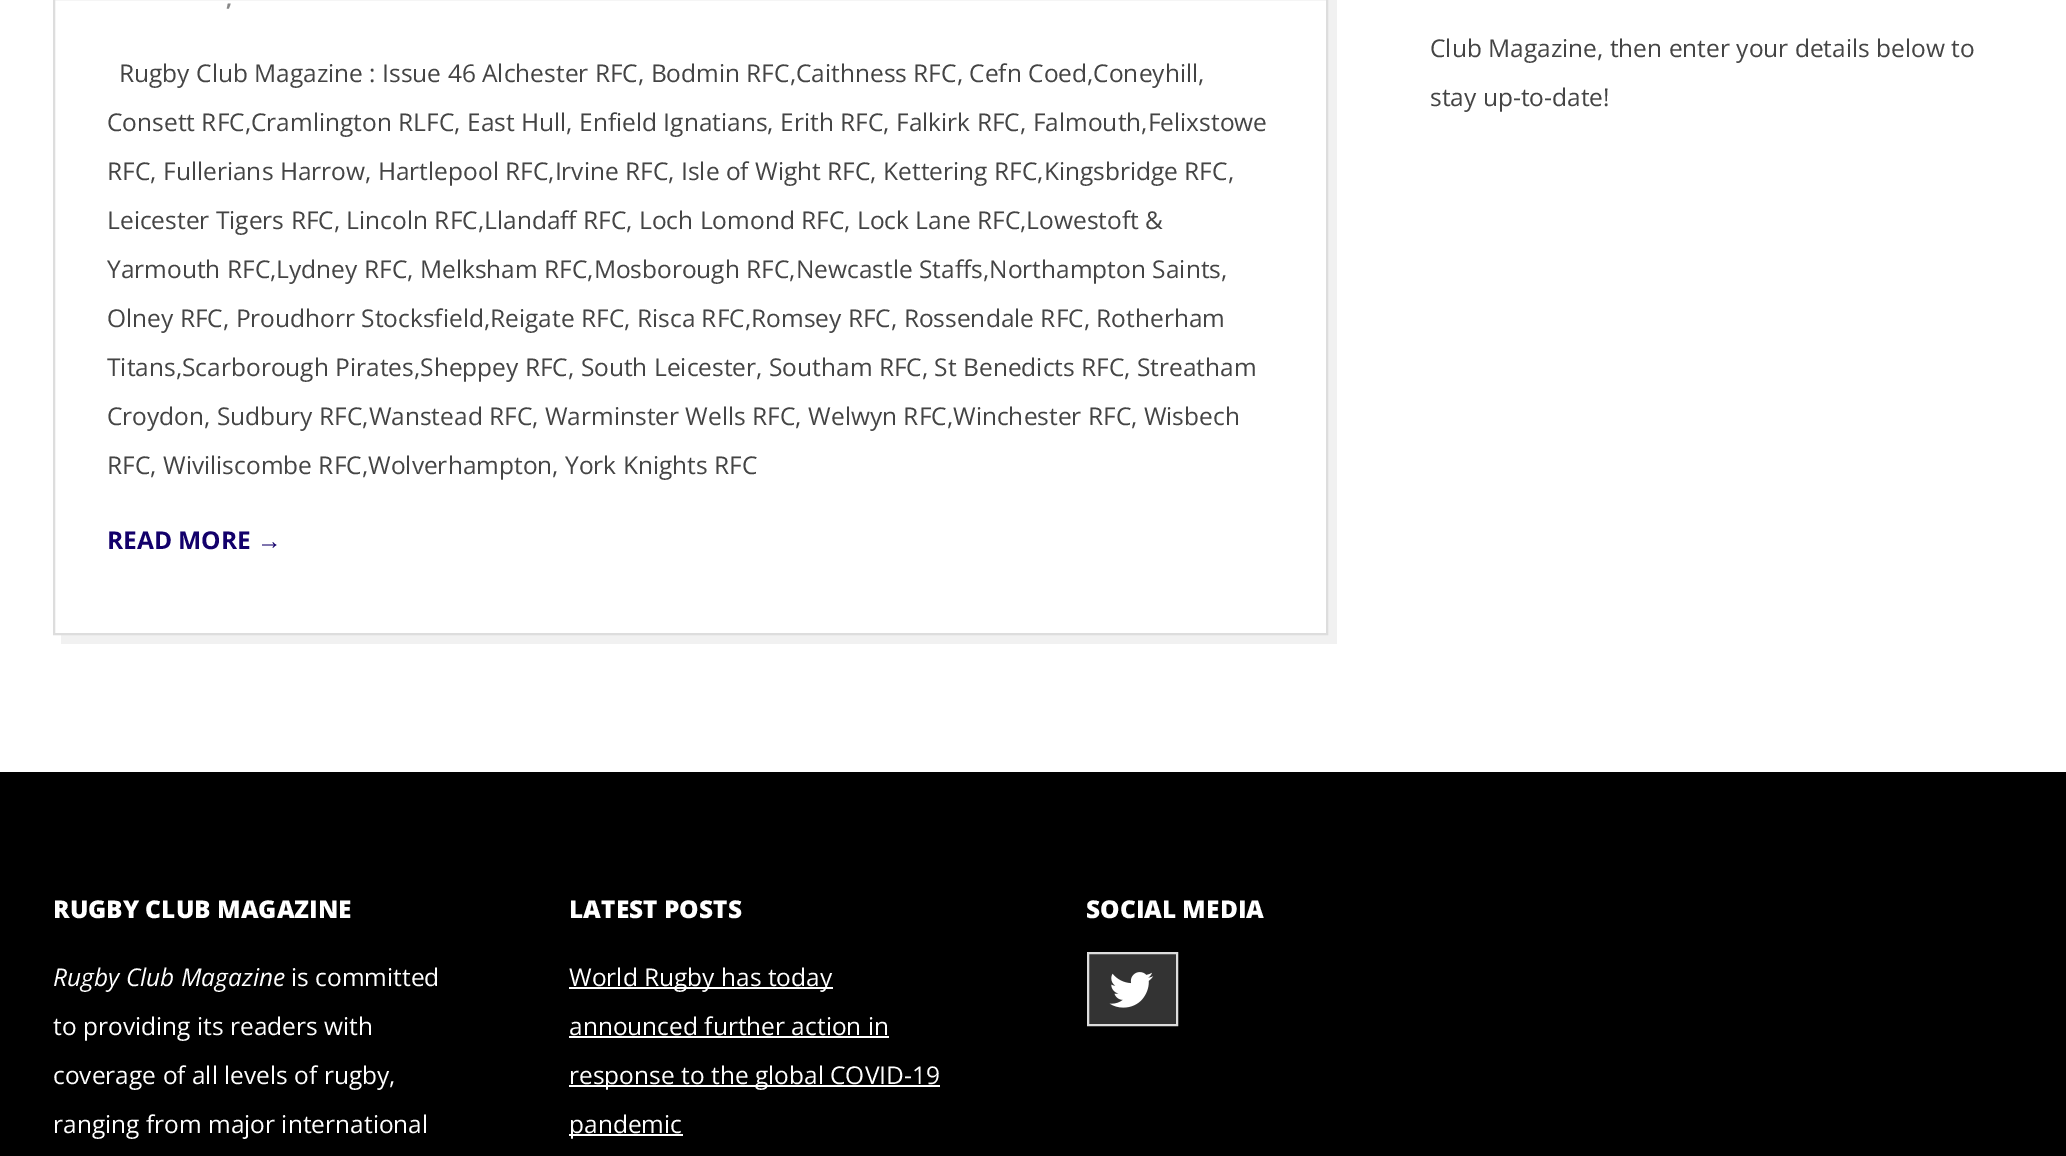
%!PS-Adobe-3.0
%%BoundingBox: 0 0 2066 1156
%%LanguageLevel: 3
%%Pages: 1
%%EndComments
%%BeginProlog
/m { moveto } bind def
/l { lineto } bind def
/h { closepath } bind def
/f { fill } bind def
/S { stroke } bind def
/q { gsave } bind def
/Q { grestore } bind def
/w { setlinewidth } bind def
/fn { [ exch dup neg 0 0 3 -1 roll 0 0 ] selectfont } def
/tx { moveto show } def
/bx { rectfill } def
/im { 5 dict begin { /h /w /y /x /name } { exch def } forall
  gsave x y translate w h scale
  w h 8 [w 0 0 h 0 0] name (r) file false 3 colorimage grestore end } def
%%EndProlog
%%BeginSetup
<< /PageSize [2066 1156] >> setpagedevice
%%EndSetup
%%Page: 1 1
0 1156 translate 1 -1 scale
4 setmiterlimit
1 setgray
0 0 2066 1156 bx
0.945 setgray
61 635 m 61 644 l 1337 644 l 1337 -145 l 1328 -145 l 1328 635 l h f
0.867 setgray
2 w
54 -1 1273 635 rectstroke
/OpenSans-Bold 21 fn
0.533 setgray
(,) 226 6 tx
/OpenSans-Regular 24.5 fn
0.267 setgray
(Rugby Club Magazine : Issue 46 Alchester RFC, Bodmin RFC,Caithness RFC, Cefn Coed,Coneyhill,) 119 82 tx
(Consett RFC,Cramlington RLFC, East Hull, Enfield Ignatians, Erith RFC, Falkirk RFC, Falmouth,Felixstowe) 107 131 tx
(RFC, Fullerians Harrow, Hartlepool RFC,Irvine RFC, Isle of Wight RFC, Kettering RFC,Kingsbridge RFC,) 107 180 tx
(Leicester Tigers RFC, Lincoln RFC,Llandaff RFC, Loch Lomond RFC, Lock Lane RFC,Lowestoft &) 107 229 tx
(Yarmouth RFC,Lydney RFC, Melksham RFC,Mosborough RFC,Newcastle Staffs,Northampton Saints,) 107 278 tx
(Olney RFC, Proudhorr Stocksfield,Reigate RFC, Risca RFC,Romsey RFC, Rossendale RFC, Rotherham) 107 327 tx
(Titans,Scarborough Pirates,Sheppey RFC, South Leicester, Southam RFC, St Benedicts RFC, Streatham) 107 376 tx
(Croydon, Sudbury RFC,Wanstead RFC, Warminster Wells RFC, Welwyn RFC,Winchester RFC, Wisbech) 107 425 tx
(RFC, Wiviliscombe RFC,Wolverhampton, York Knights RFC) 107 474 tx
/OpenSans-Bold 24.5 fn
0.075 0 0.42 setrgbcolor
(READ MORE) 107 549 tx
/LiberationSans-Bold 24.5 fn
(→) 257 549 tx
/OpenSans-Regular 24.5 fn
0.267 setgray
(Club Magazine, then enter your details below to) 1430 57 tx
(stay up-to-date!) 1430 106 tx
0 setgray
0 772 2066 384 bx
/OpenSans-ExtraBold 24.5 fn
1 setgray
(RUGBY CLUB MAGAZINE) 53 918 tx
/OpenSans-Italic 24.5 fn
(Rugby Club Magazine) 53 986 tx
/OpenSans-Regular 24.5 fn
(is committed) 291 986 tx
(to providing its readers with) 53 1035 tx
(coverage of all levels of rugby,) 53 1084 tx
(ranging from major international) 53 1133 tx
/OpenSans-ExtraBold 24.5 fn
(LATEST POSTS) 569 918 tx
569 987 264 2 bx
/OpenSans-Regular 24.5 fn
(World Rugby has today) 569 986 tx
(announced further action in) 569 1035 tx
569 1036 320 2 bx
569 1085 371 2 bx
(response to the global COVID-19) 569 1084 tx
569 1134 114 2 bx
(pandemic) 569 1133 tx
/OpenSans-ExtraBold 24.5 fn
(SOCIAL MEDIA) 1086 918 tx
0.2 setgray
1088 953 m 1177 953 l 1177 1025 l 1088 1025 l h q f Q
0.867 setgray
S
(image0.raw) 1109 972 45 36 im
showpage
%%EOF
